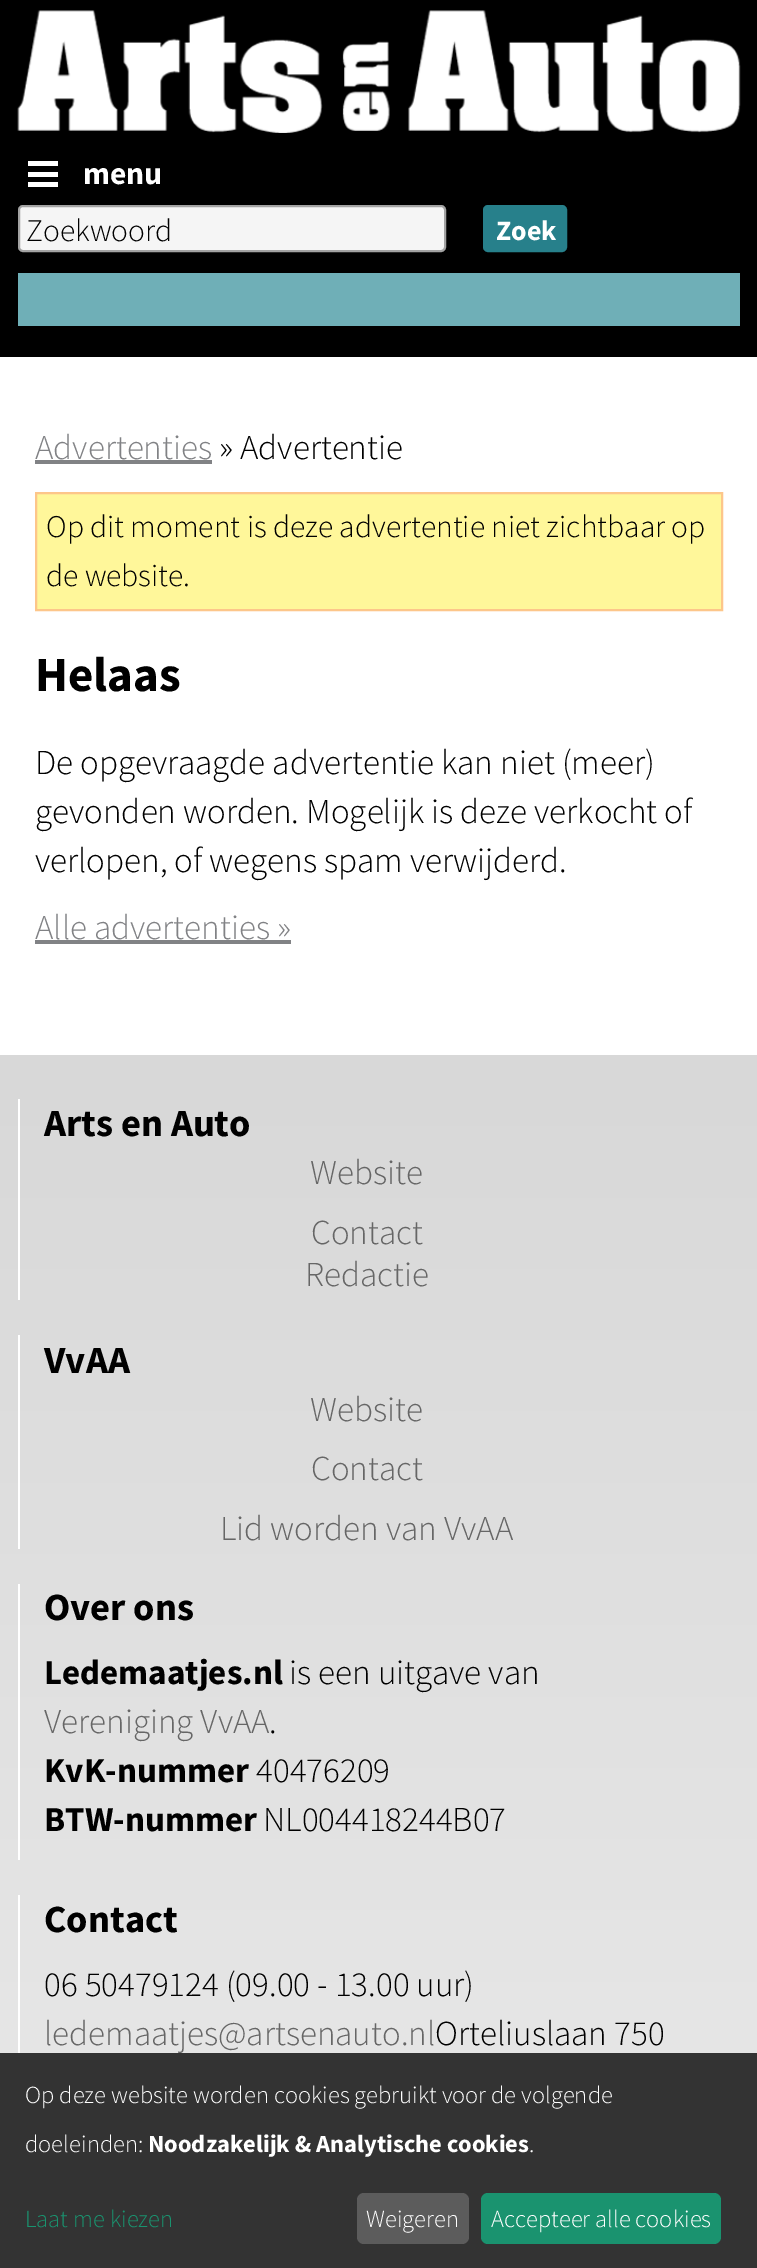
%!PS-Adobe-3.0
%%BoundingBox: 0 0 757 2268
%%LanguageLevel: 3
%%Pages: 1
%%EndComments
%%BeginProlog
/m { moveto } bind def
/l { lineto } bind def
/h { closepath } bind def
/f { fill } bind def
/S { stroke } bind def
/q { gsave } bind def
/Q { grestore } bind def
/w { setlinewidth } bind def
/fn { [ exch dup neg 0 0 3 -1 roll 0 0 ] selectfont } def
/tx { moveto show } def
/bx { rectfill } def
/rr { 5 dict begin { /r /h /w /y /x } { exch def } forall
  x r add y moveto x w add y 2 copy h add r arct x w add y h add x 1 index r arct
  x y h add x y r arct x y 2 copy exch w add exch r arct closepath end } def
/im { 5 dict begin { /h /w /y /x /name } { exch def } forall
  gsave x y translate w h scale
  w h 8 [w 0 0 h 0 0] name (r) file false 3 colorimage grestore end } def
%%EndProlog
%%BeginSetup
<< /PageSize [757 2268] >> setpagedevice
%%EndSetup
%%Page: 1 1
0 2268 translate 1 -1 scale
4 setmiterlimit
1 setgray
0 0 757 2268 bx
0 setgray
0 0 757 357 bx
(image0.raw) 17 10 724 123 im
1 setgray
28 182 30 5 bx
28 172 30 5 bx
28 161 30 5 bx
/SourceSansPro-Bold 31.5 fn
(menu) 83 184 tx
0.961 setgray
19 206 426 45 4 rr q f Q
0.639 setgray
2 w
S
/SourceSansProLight-Light 31.5 fn
0 setgray
(Zoekwoord) 26 241 tx
0.153 0.502 0.545 setrgbcolor
484 206 82 45 4 rr q f Q
S
/SourceSansPro-Bold 28 fn
1 setgray
(Zoek) 496 240 tx
0.435 0.686 0.718 setrgbcolor
18 273 722 53 bx
/SourceSansProLight-Light 35 fn
0.506 0.51 0.522 setrgbcolor
(Advertenties) 35 459 tx
35 460 177 4 bx
0 setgray
(» Advertentie) 219 459 tx
1 0.969 0.604 setrgbcolor
36 493 m 722 493 l 722 610 l 36 610 l h q f Q
0.992 0.776 0.541 setrgbcolor
S
/SourceSansProLight-Light 31.5 fn
0 setgray
(Op dit moment is deze advertentie niet zichtbaar op) 46 537 tx
(de website.) 46 586 tx
/SourceSansPro-Bold 49 fn
(Helaas) 35 691 tx
/SourceSansProLight-Light 35 fn
(De opgevraagde advertentie kan niet \(meer\)) 35 774 tx
(gevonden worden. Mogelijk is deze verkocht of) 35 823 tx
(verlopen, of wegens spam verwijderd.) 35 872 tx
0.506 0.51 0.522 setrgbcolor
(Alle advertenties ») 35 939 tx
35 940 256 4 bx
q 0 1055 m 757 1055 l 757 2053 l 0 2053 l h clip newpath
<< /ShadingType 2 /ColorSpace /DeviceRGB /Coords [0 1055 0 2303] /Extend [true true] /Function << /FunctionType 2 /Domain [0 1] /C0 [0.847 0.847 0.847] /C1 [0.918 0.918 0.918] /N 1 >> >> shfill Q
1 setgray
18 1099 2 201 bx
/SourceSansPro-Bold 38.5 fn
0 setgray
(Arts en Auto) 44 1136 tx
/SourceSansProLight-Light 35 fn
0.4 setgray
(Website) 310 1184 tx
(Contact) 311 1244 tx
(Redactie) 305 1286 tx
1 setgray
18 1335 2 214 bx
/SourceSansPro-Bold 38.5 fn
0 setgray
(VvAA) 44 1373 tx
/SourceSansProLight-Light 35 fn
0.4 setgray
(Website) 310 1421 tx
(Contact) 311 1480 tx
(Lid worden van VvAA) 220 1540 tx
1 setgray
18 1584 2 276 bx
/SourceSansPro-Bold 38.5 fn
0 setgray
(Over ons) 44 1620 tx
/SourceSansPro-Bold 35 fn
(Ledemaatjes.nl) 44 1684 tx
/SourceSansProLight-Light 35 fn
(is een uitgave van) 289 1684 tx
0.4 setgray
(Vereniging VvAA) 44 1733 tx
0 setgray
(.) 269 1733 tx
/SourceSansPro-Bold 35 fn
(KvK-nummer) 44 1782 tx
/SourceSansProLight-Light 35 fn
(40476209) 256 1782 tx
/SourceSansPro-Bold 35 fn
(BTW-nummer) 44 1831 tx
/SourceSansProLight-Light 35 fn
(NL004418244B07) 263 1831 tx
1 setgray
18 1895 2 158 bx
/SourceSansPro-Bold 38.5 fn
0 setgray
(Contact) 44 1932 tx
/SourceSansProLight-Light 35 fn
(06 50479124 \(09.00 - 13.00 uur\)) 44 1996 tx
0.4 setgray
(ledemaatjes@artsenauto.nl) 44 2045 tx
0 setgray
(Orteliuslaan 750) 435 2045 tx
0.2 setgray
0 2053 757 215 bx
/SourceSansProLight-Light 24.5 fn
1 setgray
(Op deze website worden cookies gebruikt voor de volgende) 25 2103 tx
(doeleinden:) 25 2152 tx
/SourceSansPro-Bold 24.5 fn
(Noodzakelijk & Analytische cookies) 148 2152 tx
/SourceSansProLight-Light 24.5 fn
(.) 529 2152 tx
0.102 0.576 0.435 setrgbcolor
(Laat me kiezen) 25 2227 tx
0.361 setgray
357 2193 112 51 7 rr f
1 setgray
(Weigeren) 366 2227 tx
0.102 0.576 0.435 setrgbcolor
481 2193 240 51 7 rr f
1 setgray
(Accepteer alle cookies) 491 2227 tx
showpage
%%EOF
